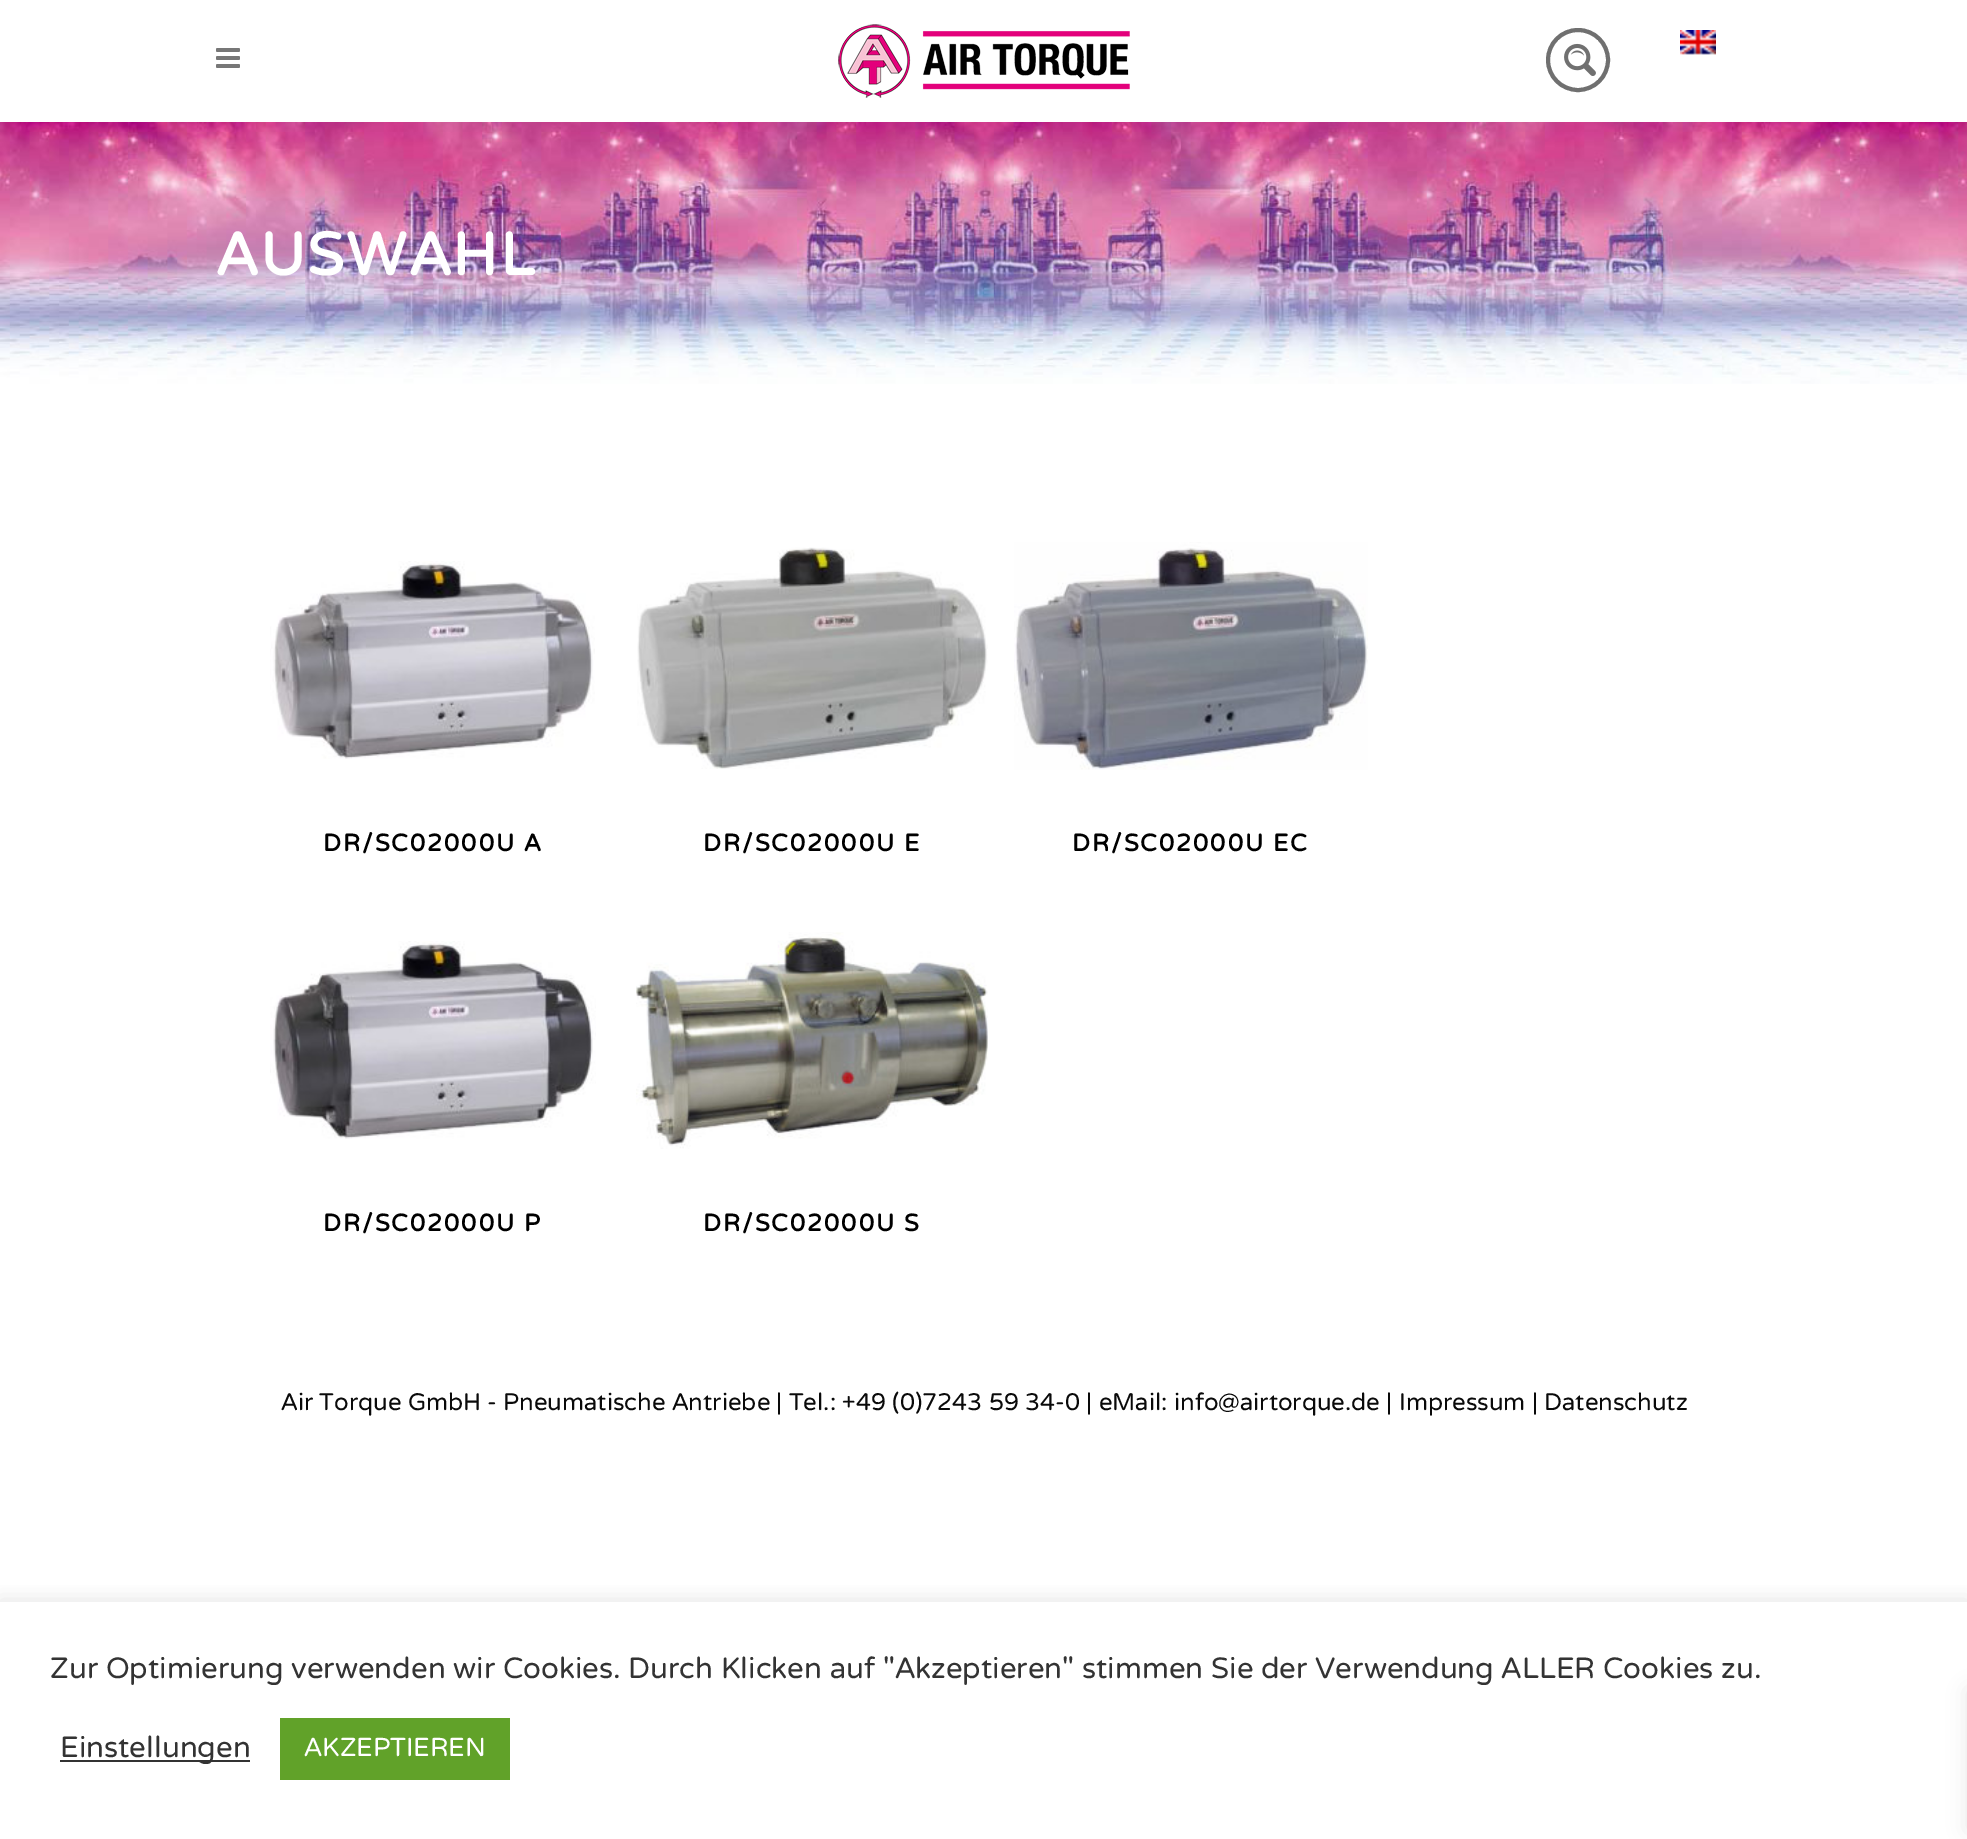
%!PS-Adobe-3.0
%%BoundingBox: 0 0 1967 1839
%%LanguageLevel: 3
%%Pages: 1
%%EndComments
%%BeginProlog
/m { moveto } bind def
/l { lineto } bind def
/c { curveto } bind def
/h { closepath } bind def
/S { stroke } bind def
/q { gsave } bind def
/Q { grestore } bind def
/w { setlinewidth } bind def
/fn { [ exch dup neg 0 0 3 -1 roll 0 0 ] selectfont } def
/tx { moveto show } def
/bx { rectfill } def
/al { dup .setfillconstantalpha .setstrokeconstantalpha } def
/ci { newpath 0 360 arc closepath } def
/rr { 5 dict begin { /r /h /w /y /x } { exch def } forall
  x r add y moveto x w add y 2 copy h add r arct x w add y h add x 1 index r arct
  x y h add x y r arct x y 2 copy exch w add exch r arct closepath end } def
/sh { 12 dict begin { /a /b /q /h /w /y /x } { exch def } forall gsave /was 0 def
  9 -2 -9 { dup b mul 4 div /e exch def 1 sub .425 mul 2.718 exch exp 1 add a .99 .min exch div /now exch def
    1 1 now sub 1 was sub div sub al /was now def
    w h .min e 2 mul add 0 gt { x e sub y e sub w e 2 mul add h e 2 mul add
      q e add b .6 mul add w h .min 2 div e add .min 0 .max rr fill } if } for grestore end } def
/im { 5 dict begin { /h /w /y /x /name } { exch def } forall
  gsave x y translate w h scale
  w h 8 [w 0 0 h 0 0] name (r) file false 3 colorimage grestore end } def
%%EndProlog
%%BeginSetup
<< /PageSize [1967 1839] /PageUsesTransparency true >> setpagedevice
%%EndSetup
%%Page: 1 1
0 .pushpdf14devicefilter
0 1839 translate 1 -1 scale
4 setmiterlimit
1 setgray
0 0 1967 1839 bx
(image0.raw) 216 48 24 20 im
(image1.raw) 838 24 292 74 im
0.439 setgray
4 w
1578 60 30 ci S
q
1558 40 40 40 rectclip
0.64 al
1 setgray
1578 32 m 1569 32 1562 36 1557 42 c 1596 42 l 1596 81 l 1616 65 1604 32 1578 32 c h 1595 82 m 1561 82 l 1571 90 1585 90 1595 82 c h 1556 77 m 1556 43 l 1548 53 1548 67 1556 77 c h eofill
Q
(image2.raw) 1564 43 32 33 im
(image3.raw) 1680 30 36 25 im
(image4.raw) 0 122 1967 262 im
/VarelaRound-Bold 60 fn
1 setgray
216 275 m 2 0 (AUSWAHL) ashow
(image5.raw) 270 561 325 198 im
/VarelaRound-Bold 24 fn
0 setgray
323 851 m 2 0 (DR/SC02000U A) ashow
(image6.raw) 637 547 351 222 im
703 851 m 2 0 (DR/SC02000U E) ashow
(image7.raw) 1014 542 354 228 im
1072 851 m 2 0 (DR/SC02000U EC) ashow
(image8.raw) 270 941 326 198 im
323 1231 m 2 0 (DR/SC02000U P) ashow
(image9.raw) 636 932 352 217 im
703 1231 m 2 0 (DR/SC02000U S) ashow
/VarelaRound-Regular 24 fn
0.039 setgray
(Air Torque GmbH - Pneumatische Antriebe | Tel.: +49 \(0\)7243 59 34-0 | eMail: info@airtorque.de | Impressum | Datenschutz) 281 1410 tx
q
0 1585 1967 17 rectclip
0.675 0.671 0.671 setrgbcolor
0 1600 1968 238 0 10 0.3 sh
Q
/VarelaRound-Regular 29.33 fn
0.2 setgray
(Zur Optimierung verwenden wir Cookies. Durch Klicken auf "Akzeptieren" stimmen Sie der Verwendung ALLER Cookies zu.) 50 1678 tx
60 1760 190 2 bx
(Einstellungen) 60 1757 tx
0.38 0.635 0.161 setrgbcolor
280 1718 230 62 bx
/VarelaRound-Regular 26 fn
1 setgray
(AKZEPTIEREN) 304 1756 tx
0 setgray
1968 1690 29 140 0 10 0.1 sh
.poppdf14devicefilter showpage
%%EOF
